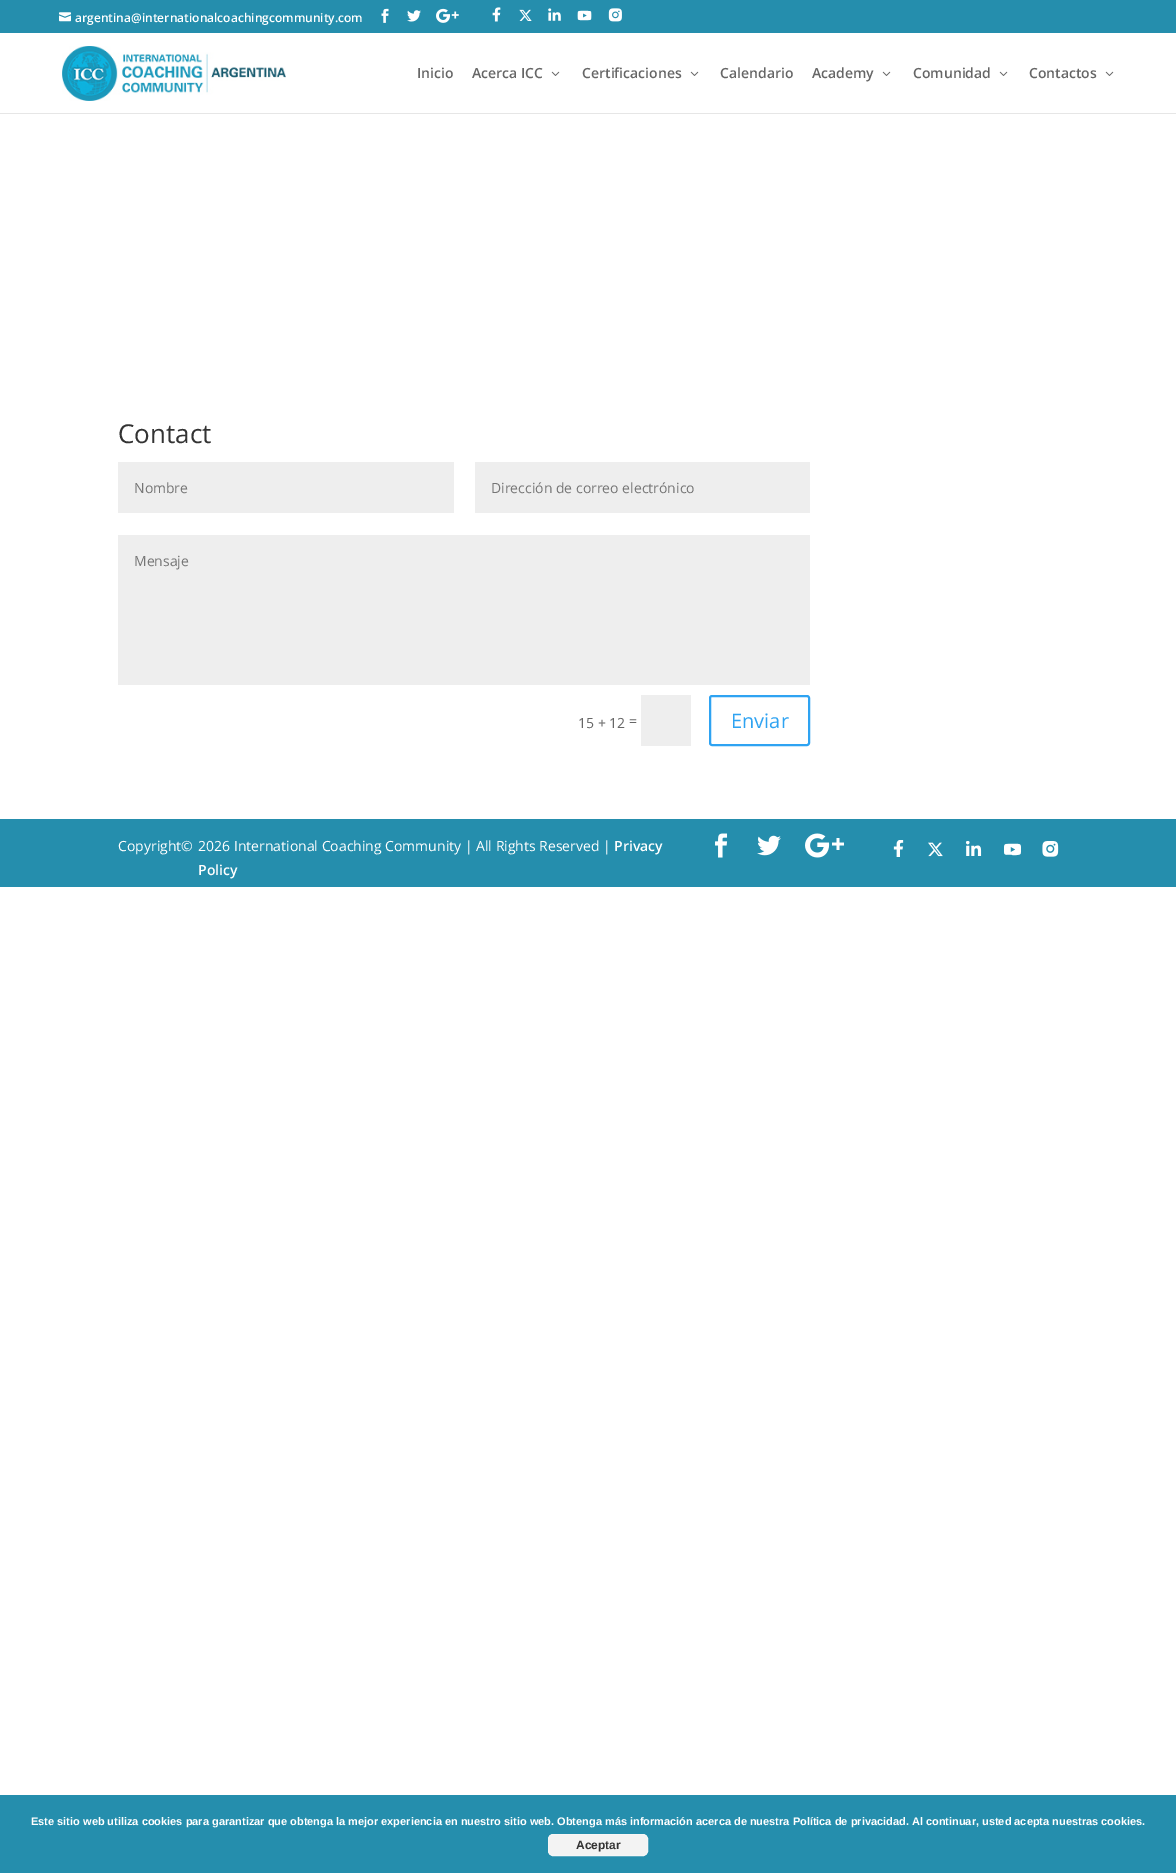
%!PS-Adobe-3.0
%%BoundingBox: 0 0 1176 1873
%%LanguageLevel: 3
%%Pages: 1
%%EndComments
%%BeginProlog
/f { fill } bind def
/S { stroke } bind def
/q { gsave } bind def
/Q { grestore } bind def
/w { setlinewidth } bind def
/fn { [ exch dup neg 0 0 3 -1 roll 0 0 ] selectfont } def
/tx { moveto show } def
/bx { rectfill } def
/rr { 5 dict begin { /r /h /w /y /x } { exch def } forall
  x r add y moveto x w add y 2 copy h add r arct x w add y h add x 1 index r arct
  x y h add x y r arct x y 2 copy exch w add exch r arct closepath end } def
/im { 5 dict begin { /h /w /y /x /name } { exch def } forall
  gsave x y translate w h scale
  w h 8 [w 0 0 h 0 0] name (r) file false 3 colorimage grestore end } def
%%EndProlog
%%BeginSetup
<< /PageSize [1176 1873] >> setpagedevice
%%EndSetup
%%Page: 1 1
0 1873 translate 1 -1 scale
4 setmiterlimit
1 setgray
0 0 1176 1873 bx
0.145 0.557 0.678 setrgbcolor
0 0 1176 33 bx
(image0.raw) 59 12 12 10 im
/OpenSans-SemiBold 12 fn
1 setgray
(argentina@internationalcoachingcommunity.com) 75 22 tx
(image1.raw) 381 8 8 15 im
(image2.raw) 407 10 14 12 im
(image3.raw) 436 8 23 15 im
(image4.raw) 492 7 9 15 im
(image5.raw) 519 9 13 12 im
(image6.raw) 548 8 13 13 im
(image7.raw) 577 10 15 11 im
(image8.raw) 608 8 14 14 im
0.902 setgray
0 113 1176 1 bx
(image9.raw) 62 46 224 55 im
/OpenSans-SemiBold 14 fn
0.4 setgray
(Inicio) 417 78 tx
(Acerca ICC) 472 78 tx
(image10.raw) 551 71 9 5 im
(Certificaciones) 582 78 tx
(image10.raw) 690 71 9 5 im
(Calendario) 720 78 tx
(Academy) 812 78 tx
(image10.raw) 882 71 9 5 im
(Comunidad) 913 78 tx
(image10.raw) 999 71 9 5 im
(Contactos) 1029 78 tx
(image10.raw) 1105 71 9 5 im
/OpenSans-Regular 26 fn
0.2 setgray
(Contact) 118 443 tx
0.933 setgray
118 462 336 51 bx
/OpenSans-Regular 14 fn
0.459 setgray
(Nombre) 134 493 tx
0.933 setgray
475 462 335 51 bx
0.459 setgray
(Dirección de correo electrónico) 491 493 tx
0.933 setgray
118 535 692 150 bx
0.459 setgray
(Mensaje) 134 566 tx
0.4 setgray
(15 + 12) 578 728 tx
(=) 629 726 tx
0.933 setgray
641 695 50 51 bx
0.18 0.639 0.949 setrgbcolor
2 w
710 696 99 49 2 rr S
/OpenSans-Regular 20 fn
(Enviar) 731 728 tx
0.145 0.557 0.678 setrgbcolor
0 819 1176 68 bx
/OpenSans-Regular 14 fn
1 setgray
(Copyright©) 118 851 tx
(2026 International Coaching Community | All Rights Reserved |) 198 851 tx
/OpenSans-SemiBold 14 fn
(Privacy) 614 851 tx
(image11.raw) 715 833 13 25 im
(image12.raw) 757 835 24 21 im
(image13.raw) 805 833 39 25 im
(image14.raw) 893 840 11 17 im
(image15.raw) 928 842 15 15 im
(image16.raw) 966 841 16 15 im
(image17.raw) 1004 843 17 13 im
(image18.raw) 1042 841 17 16 im
(Policy) 198 875 tx
0.145 0.557 0.678 setrgbcolor
0 1795 1176 78 bx
/LiberationSans-Bold 11 fn
1 setgray
(Este sitio web utiliza cookies para garantizar que obtenga la mejor experiencia en nuestro sitio web. Obtenga más información acerca de nuestra Política de privacidad. Al continuar, usted acepta nuestras cookies.) 31 1825 tx
0.953 setgray
548.5 1834.5 99 21 4.5 rr q f Q
0.965 setgray
1 w
S
/LiberationSans-Bold 12 fn
0.2 setgray
(Aceptar) 576 1849 tx
showpage
%%EOF
